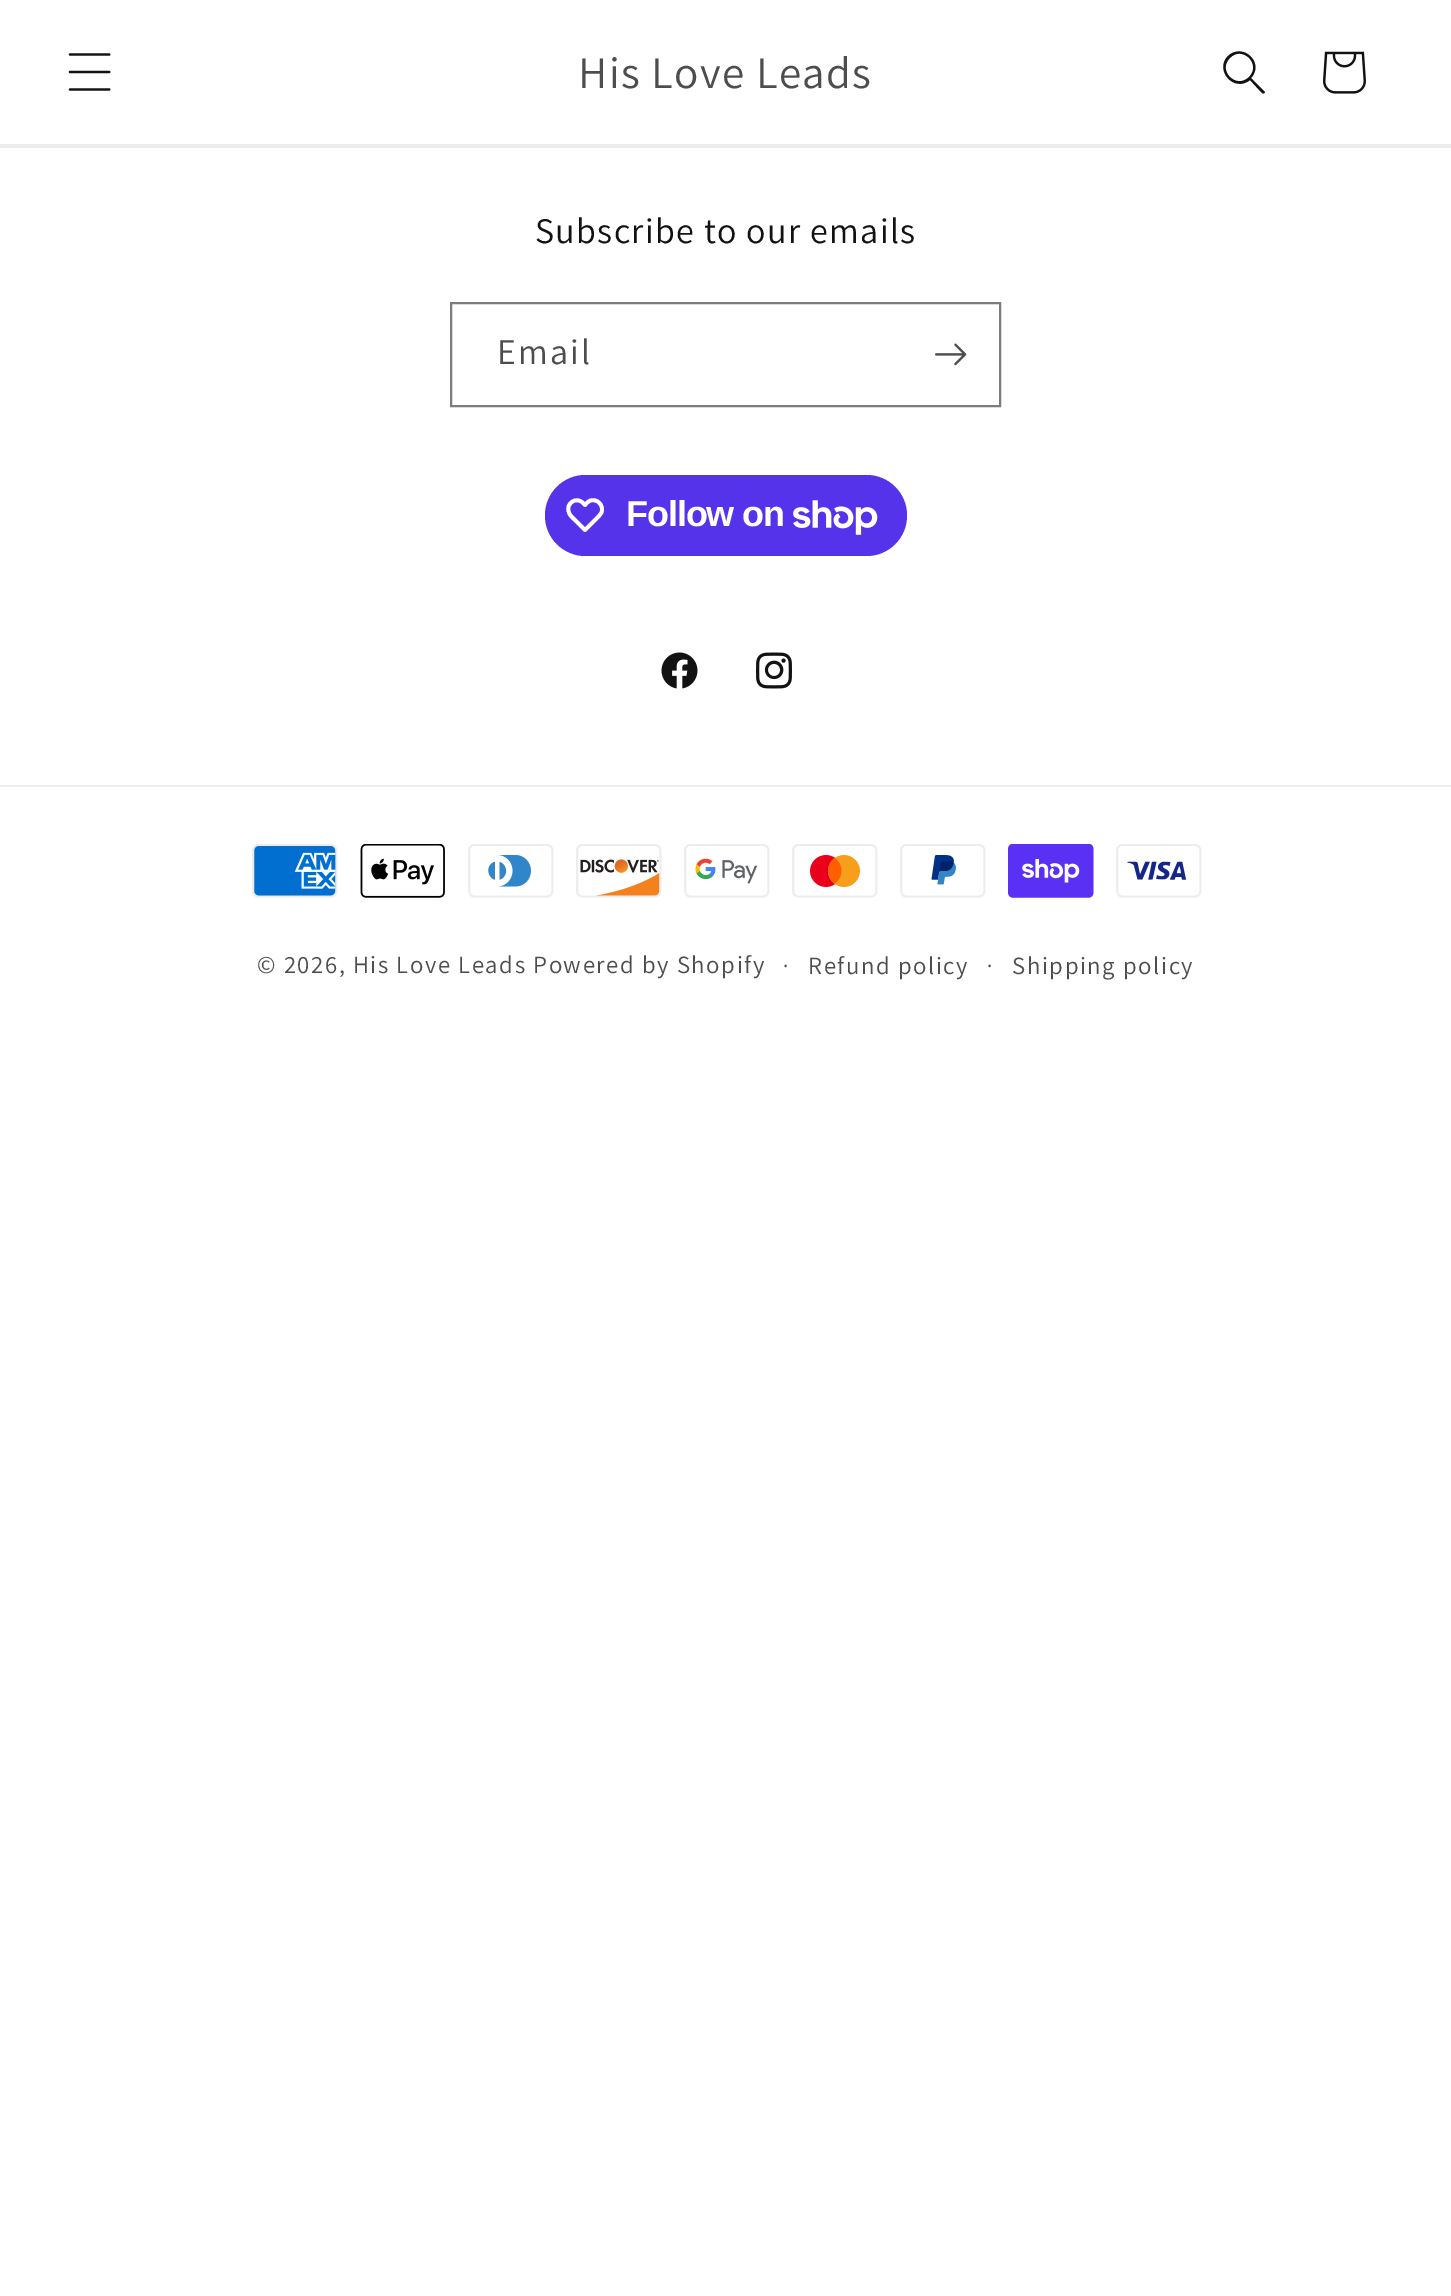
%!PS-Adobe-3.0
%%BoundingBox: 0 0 1451 2296
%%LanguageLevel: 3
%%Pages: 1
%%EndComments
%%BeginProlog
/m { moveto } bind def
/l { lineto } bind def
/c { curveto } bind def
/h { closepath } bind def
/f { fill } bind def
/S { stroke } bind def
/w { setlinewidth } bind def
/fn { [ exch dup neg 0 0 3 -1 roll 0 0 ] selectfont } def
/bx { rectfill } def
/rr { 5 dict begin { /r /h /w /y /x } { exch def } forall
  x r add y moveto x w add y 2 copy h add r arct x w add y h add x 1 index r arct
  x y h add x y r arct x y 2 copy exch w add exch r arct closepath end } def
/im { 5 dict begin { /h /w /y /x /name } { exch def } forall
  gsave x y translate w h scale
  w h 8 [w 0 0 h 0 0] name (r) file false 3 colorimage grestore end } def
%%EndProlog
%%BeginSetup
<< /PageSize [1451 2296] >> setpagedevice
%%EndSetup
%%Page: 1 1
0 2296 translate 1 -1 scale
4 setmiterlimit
1 setgray
0 0 1451 2296 bx
(image0.raw) 68 53 43 38 im
/Assistant-Regular 45 fn
0.302 setgray
578 88 m 1.35 0 (His Love Leads) ashow
0.071 setgray
1249 77 m 1236 90 1217 70 1230 58 c 1242 45 1262 64 1249 77 c 1250 80 m 1234 93 1214 70 1228 56 c 1243 42 1265 63 1251 78 c 1265 92 l 1265 93 1263 94 1262 93 c h eofill
(image1.raw) 1323 51 43 43 im
0.925 setgray
0 144 1451 4 bx
/Assistant-Regular 36 fn
0.071 setgray
535 243 m 1.35 0 (Subscribe to our emails) ashow
0.49 setgray
2 w
451 303 549 103 rectstroke
0.302 setgray
497 364 m 2.25 0 (Email) ashow
(image2.raw) 935 343 32 23 im
0.329 0.2 0.922 setrgbcolor
545 475 362 81 40.5 rr f
1 setgray
3.8 w
1 setlinejoin
583 503 m 585 505 l 586.5 503 588 501.5 590.5 500.5 c 597.5 498.5 604 505.5 601.5 512.5 c 600 515.5 597 518 594.5 520.5 c 585 530 l 575.5 520.5 l 573 518 570 516 569 512.5 c 565 503.5 576.5 496 583 503 c h S
/LiberationSans-Bold 36 fn
626 526 m -1.1 0 (Follow on) ashow
(image3.raw) 793 500 85 35 im
(image4.raw) 661 652 37 37 im
(image5.raw) 756 652 36 37 im
0.925 setgray
0 785 1451 2 bx
(image6.raw) 252 844 86 54 im
(image7.raw) 360 844 85 54 im
(image8.raw) 468 844 86 54 im
(image9.raw) 576 844 86 54 im
(image10.raw) 684 844 86 54 im
(image11.raw) 792 844 86 54 im
(image12.raw) 900 844 86 54 im
(image13.raw) 1008 844 86 54 im
(image14.raw) 1116 844 86 54 im
/Assistant-Regular 24.75 fn
0.302 setgray
257 973 m 1.6 0 (© 2026, His Love Leads) ashow
533 973 m 1.6 0 (Powered by Shopify) ashow
/Assistant-Regular 22 fn
783 973 m 1.6 0 (·) ashow
/Assistant-Regular 24.75 fn
808 974 m 1.6 0 (Refund policy) ashow
/Assistant-Regular 22 fn
987 973 m 1.6 0 (·) ashow
/Assistant-Regular 24.75 fn
1012 974 m 1.6 0 (Shipping policy) ashow
showpage
%%EOF
